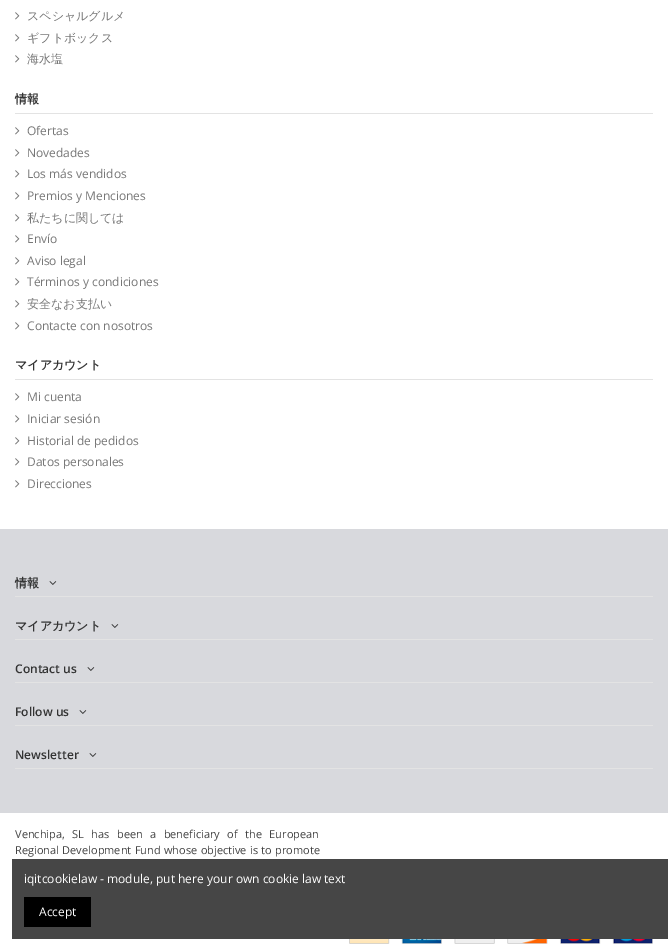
%!PS-Adobe-3.0
%%BoundingBox: 0 0 668 951
%%LanguageLevel: 3
%%Pages: 1
%%EndComments
%%BeginProlog
/m { moveto } bind def
/fn { [ exch dup neg 0 0 3 -1 roll 0 0 ] selectfont } def
/tx { moveto show } def
/bx { rectfill } def
/im { 5 dict begin { /h /w /y /x /name } { exch def } forall
  gsave x y translate w h scale
  w h 8 [w 0 0 h 0 0] name (r) file false 3 colorimage grestore end } def
%%EndProlog
%%BeginSetup
<< /PageSize [668 951] >> setpagedevice
%%EndSetup
%%Page: 1 1
0 951 translate 1 -1 scale
4 setmiterlimit
1 setgray
0 0 668 951 bx
(image0.raw) 15 12 5 8 im
/WenQuanYiZenHei-Medium 12 fn
0.467 setgray
(スペシャルグルメ) 27 20 tx
(image0.raw) 15 34 5 8 im
(ギフトボックス) 27 42 tx
(image0.raw) 15 55 5 8 im
(海水塩) 27 63 tx
0.89 setgray
15 113 638 1 bx
/WenQuanYiZenHei-Bold 12 fn
0.2 setgray
(情報) 15 103 tx
(image0.raw) 15 127 5 8 im
/OpenSans-Regular 12 fn
0.467 setgray
(Ofertas) 27 135 tx
(image0.raw) 15 149 5 8 im
(Novedades) 27 157 tx
(image0.raw) 15 170 5 8 im
(Los más vendidos) 27 178 tx
(image0.raw) 15 192 5 8 im
(Premios y Menciones) 27 200 tx
(image0.raw) 15 214 5 8 im
/WenQuanYiZenHei-Medium 12 fn
(私たちに関しては) 27 222 tx
(image0.raw) 15 235 5 8 im
/OpenSans-Regular 12 fn
(Envío) 27 243 tx
(image0.raw) 15 257 5 8 im
(Aviso legal) 27 265 tx
(image0.raw) 15 278 5 8 im
(Términos y condiciones) 27 286 tx
(image0.raw) 15 300 5 8 im
/WenQuanYiZenHei-Medium 12 fn
(安全なお支払い) 27 308 tx
(image0.raw) 15 322 5 8 im
/OpenSans-Regular 12 fn
(Contacte con nosotros) 27 330 tx
0.89 setgray
15 379 638 1 bx
/WenQuanYiZenHei-Bold 12 fn
0.2 setgray
(マイアカウント) 15 369 tx
(image0.raw) 15 393 5 8 im
/OpenSans-Regular 12 fn
0.467 setgray
(Mi cuenta) 27 401 tx
(image0.raw) 15 415 5 8 im
(Iniciar sesión) 27 423 tx
(image0.raw) 15 437 5 8 im
(Historial de pedidos) 27 445 tx
(image0.raw) 15 458 5 8 im
(Datos personales) 27 466 tx
(image0.raw) 15 480 5 8 im
(Direcciones) 27 488 tx
0.847 0.851 0.867 setrgbcolor
0 529 668 284 bx
0.89 setgray
15 596 638 1 bx
/WenQuanYiZenHei-Bold 12 fn
0.2 setgray
(情報) 15 587 tx
(image1.raw) 49 581 8 4 im
0.89 setgray
15 639 638 1 bx
0.2 setgray
(マイアカウント) 15 630 tx
(image1.raw) 111 624 8 4 im
0.89 setgray
15 682 638 1 bx
/OpenSans-SemiBold 12 fn
0.2 setgray
(Contact us) 15 673 tx
(image1.raw) 87 667 8 4 im
0.89 setgray
15 725 638 1 bx
0.2 setgray
(Follow us) 15 716 tx
(image1.raw) 79 710 8 4 im
0.89 setgray
15 768 638 1 bx
0.2 setgray
(Newsletter) 15 759 tx
(image1.raw) 89 753 8 4 im
/OpenSans-Regular 11 fn
0.267 setgray
15 838 m 4.5 0 32 (Venchipa, SL has been a beneficiary of the European) widthshow
15 854 m 0.5 0 32 (Regional Development Fund whose objective is to promote) widthshow
(image2.raw) 349 939 304 5 im
0.275 setgray
12 859 656 80 bx
/OpenSans-Regular 12 fn
1 setgray
(iqitcookielaw - module, put here your own cookie law text) 24 883 tx
0 setgray
24 897 67 30 bx
1 setgray
(Accept) 39 916 tx
showpage
%%EOF
